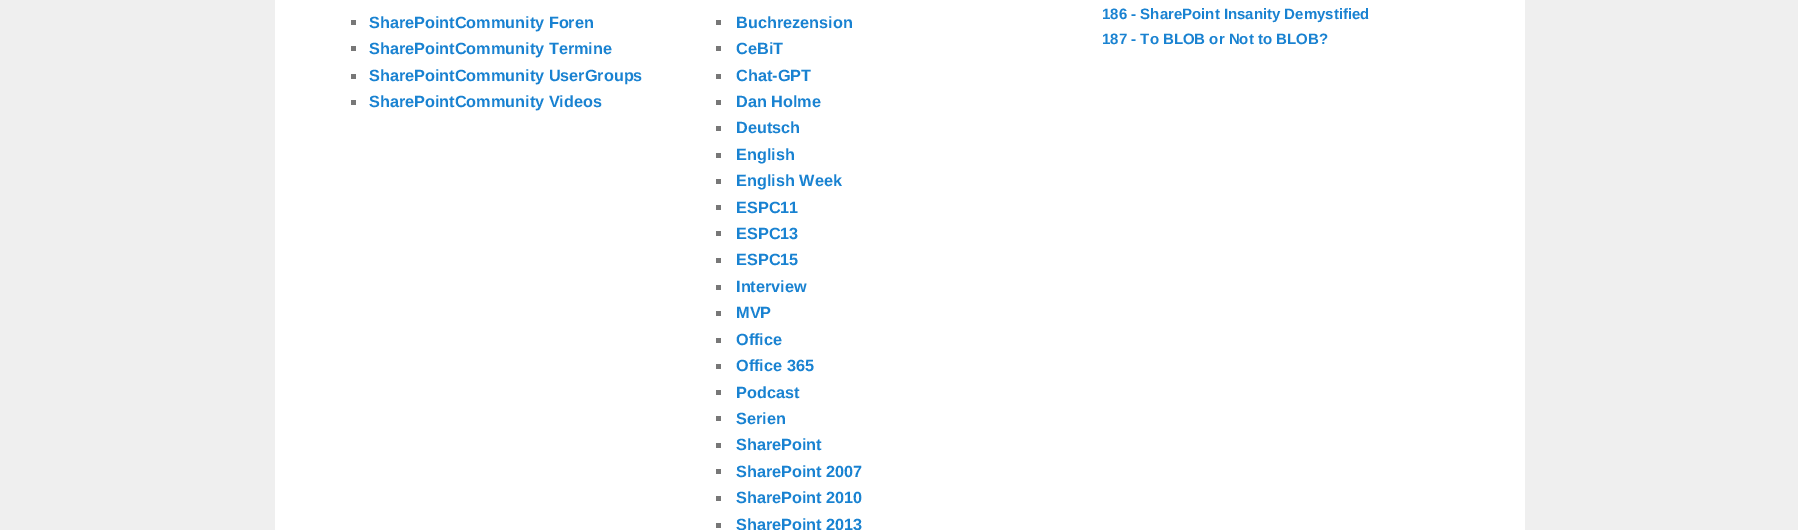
%!PS-Adobe-3.0
%%BoundingBox: 0 0 1798 530
%%LanguageLevel: 3
%%Pages: 1
%%EndComments
%%BeginProlog
/fn { [ exch dup neg 0 0 3 -1 roll 0 0 ] selectfont } def
/tx { moveto show } def
/bx { rectfill } def
%%EndProlog
%%BeginSetup
<< /PageSize [1798 530] >> setpagedevice
%%EndSetup
%%Page: 1 1
0 530 translate 1 -1 scale
4 setmiterlimit
0.937 setgray
0 0 1798 530 bx
1 setgray
275 0 1250 530 bx
0.467 setgray
351 20 5 5 bx
/LiberationSans-Bold 16.25 fn
0.098 0.51 0.82 setrgbcolor
(SharePointCommunity Foren) 369 28 tx
0.467 setgray
351 46 5 5 bx
0.098 0.51 0.82 setrgbcolor
(SharePointCommunity Termine) 369 54 tx
0.467 setgray
351 74 5 5 bx
0.098 0.51 0.82 setrgbcolor
(SharePointCommunity UserGroups) 369 81 tx
0.467 setgray
351 100 5 5 bx
0.098 0.51 0.82 setrgbcolor
(SharePointCommunity Videos) 369 107 tx
0.467 setgray
716 20 5 5 bx
0.098 0.51 0.82 setrgbcolor
(Buchrezension) 736 28 tx
0.467 setgray
716 46 5 5 bx
0.098 0.51 0.82 setrgbcolor
(CeBiT) 736 54 tx
0.467 setgray
716 74 5 5 bx
0.098 0.51 0.82 setrgbcolor
(Chat-GPT) 736 81 tx
0.467 setgray
716 100 5 5 bx
0.098 0.51 0.82 setrgbcolor
(Dan Holme) 736 107 tx
0.467 setgray
716 126 5 5 bx
0.098 0.51 0.82 setrgbcolor
(Deutsch) 736 133 tx
0.467 setgray
716 153 5 5 bx
0.098 0.51 0.82 setrgbcolor
(English) 736 160 tx
0.467 setgray
716 179 5 5 bx
0.098 0.51 0.82 setrgbcolor
(English Week) 736 186 tx
0.467 setgray
716 205 5 5 bx
0.098 0.51 0.82 setrgbcolor
(ESPC11) 736 213 tx
0.467 setgray
716 231 5 5 bx
0.098 0.51 0.82 setrgbcolor
(ESPC13) 736 239 tx
0.467 setgray
716 258 5 5 bx
0.098 0.51 0.82 setrgbcolor
(ESPC15) 736 265 tx
0.467 setgray
716 285 5 5 bx
0.098 0.51 0.82 setrgbcolor
(Interview) 736 292 tx
0.467 setgray
716 311 5 5 bx
0.098 0.51 0.82 setrgbcolor
(MVP) 736 318 tx
0.467 setgray
716 338 5 5 bx
0.098 0.51 0.82 setrgbcolor
(Office) 736 345 tx
0.467 setgray
716 364 5 5 bx
0.098 0.51 0.82 setrgbcolor
(Office 365) 736 371 tx
0.467 setgray
716 390 5 5 bx
0.098 0.51 0.82 setrgbcolor
(Podcast) 736 398 tx
0.467 setgray
716 416 5 5 bx
0.098 0.51 0.82 setrgbcolor
(Serien) 736 424 tx
0.467 setgray
716 443 5 5 bx
0.098 0.51 0.82 setrgbcolor
(SharePoint) 736 450 tx
0.467 setgray
716 469 5 5 bx
0.098 0.51 0.82 setrgbcolor
(SharePoint 2007) 736 477 tx
0.467 setgray
716 496 5 5 bx
0.098 0.51 0.82 setrgbcolor
(SharePoint 2010) 736 503 tx
0.467 setgray
716 523 5 5 bx
0.098 0.51 0.82 setrgbcolor
(SharePoint 2013) 736 530 tx
/LiberationSans-Bold 15 fn
(186 - SharePoint Insanity Demystified) 1102 19 tx
(187 - To BLOB or Not to BLOB?) 1102 44 tx
showpage
%%EOF
